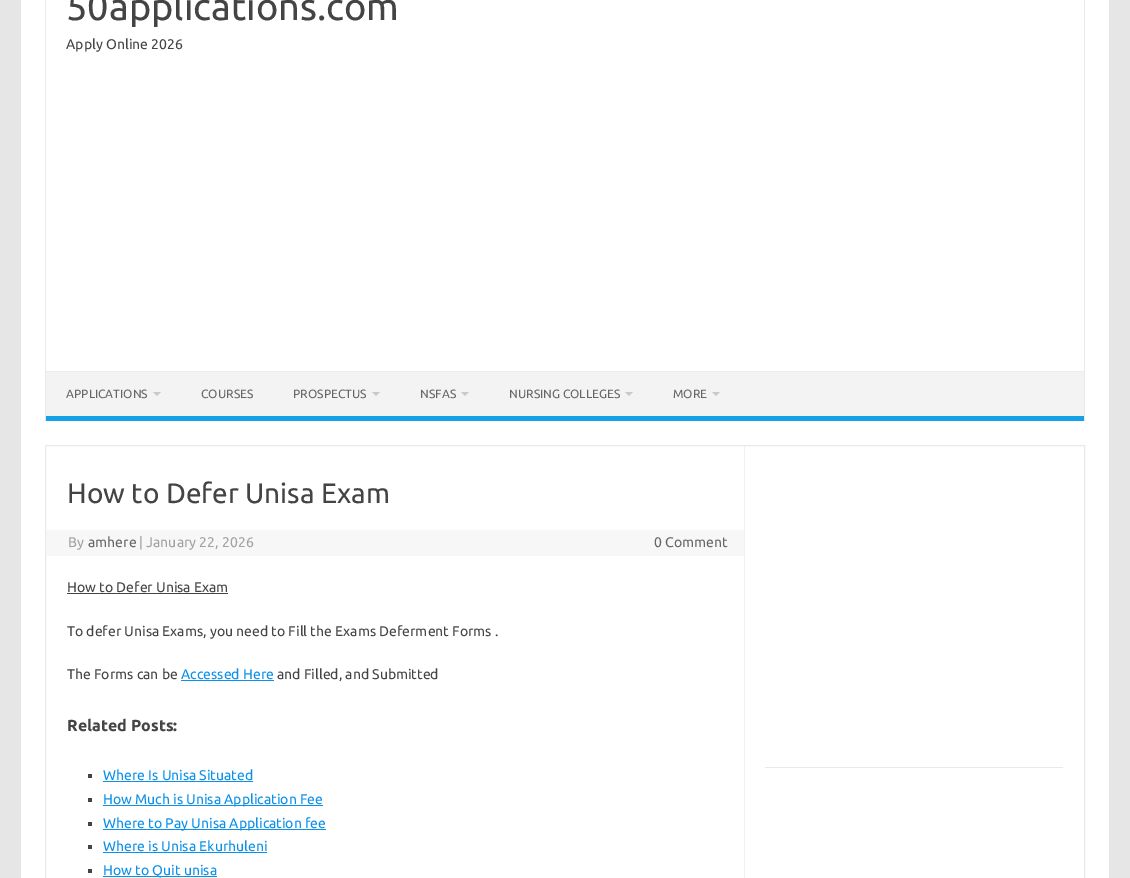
%!PS-Adobe-3.0
%%BoundingBox: 0 0 1130 878
%%LanguageLevel: 3
%%Pages: 1
%%EndComments
%%BeginProlog
/m { moveto } bind def
/l { lineto } bind def
/h { closepath } bind def
/f { fill } bind def
/fn { [ exch dup neg 0 0 3 -1 roll 0 0 ] selectfont } def
/tx { moveto show } def
/bx { rectfill } def
%%EndProlog
%%BeginSetup
<< /PageSize [1130 878] >> setpagedevice
%%EndSetup
%%Page: 1 1
0 878 translate 1 -1 scale
4 setmiterlimit
0.902 setgray
0 0 1130 878 bx
1 setgray
21 0 1088 878 bx
0.914 setgray
1084 0 1 421 bx
45 0 1 421 bx
/Ubuntu-Regular 38 fn
0.267 setgray
(50applications.com) 66 20 tx
/Ubuntu-Regular 14 fn
(Apply Online 2026) 66 49 tx
0.953 setgray
46 372 1038 44 bx
0.929 setgray
46 371 1038 1 bx
0.086 0.631 0.906 setrgbcolor
46 416 1038 5 bx
/Ubuntu-Regular 12 fn
0.4 setgray
(APPLICATIONS) 66 398 tx
0.788 setgray
153 392 m 161 392 l 157 396 l h f
0.4 setgray
(COURSES) 201 398 tx
(PROSPECTUS) 293 398 tx
0.788 setgray
372 392 m 380 392 l 376 396 l h f
0.4 setgray
(NSFAS) 420 398 tx
0.788 setgray
461 392 m 469 392 l 465 396 l h f
0.4 setgray
(NURSING COLLEGES) 509 398 tx
0.788 setgray
625 392 m 633 392 l 629 396 l h f
0.4 setgray
(MORE) 673 398 tx
0.788 setgray
712 392 m 720 392 l 716 396 l h f
0.914 setgray
45.5 445.5 1039 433 rectstroke
0.945 setgray
744 446 1 432 bx
/Ubuntu-Regular 28 fn
0.267 setgray
(How to Defer Unisa Exam) 67 503 tx
0.969 setgray
46 530 698 26 bx
/Ubuntu-Regular 14 fn
0.635 setgray
(By) 68 547 tx
0.4 setgray
(amhere) 88 547 tx
0.635 setgray
(| January 22, 2026) 139 547 tx
0.4 setgray
(0 Comment) 654 547 tx
0.267 setgray
(How to Defer Unisa Exam) 67 592 tx
67 593 161 1 bx
(To defer Unisa Exams, you need to Fill the Exams Deferment Forms .) 67 636 tx
(The Forms can be) 67 679 tx
0.043 0.569 0.918 setrgbcolor
(Accessed Here) 181 679 tx
181 680 93 1 bx
0.267 setgray
(and Filled, and Submitted) 277 679 tx
/Ubuntu-Bold 16 fn
(Related Posts:) 67 731 tx
88 774 4 4 bx
/Ubuntu-Regular 14 fn
0.043 0.569 0.918 setrgbcolor
(Where Is Unisa Situated) 103 780 tx
103 781 150 1 bx
0.267 setgray
88 798 4 4 bx
0.043 0.569 0.918 setrgbcolor
103 805 220 1 bx
(How Much is Unisa Application Fee) 103 804 tx
0.267 setgray
88 822 4 4 bx
0.043 0.569 0.918 setrgbcolor
103 829 223 1 bx
(Where to Pay Unisa Application fee) 103 828 tx
0.267 setgray
88 845 4 4 bx
0.043 0.569 0.918 setrgbcolor
(Where is Unisa Ekurhuleni) 103 851 tx
103 852 164 1 bx
0.267 setgray
88 869 4 4 bx
0.043 0.569 0.918 setrgbcolor
103 876 114 1 bx
(How to Quit unisa) 103 875 tx
0.914 setgray
765 767 298 1 bx
showpage
%%EOF
